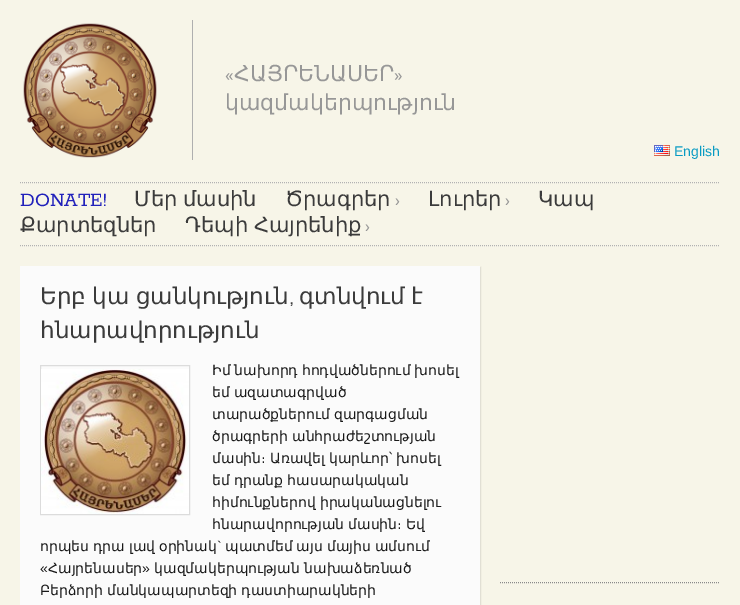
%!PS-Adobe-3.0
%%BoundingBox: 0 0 740 605
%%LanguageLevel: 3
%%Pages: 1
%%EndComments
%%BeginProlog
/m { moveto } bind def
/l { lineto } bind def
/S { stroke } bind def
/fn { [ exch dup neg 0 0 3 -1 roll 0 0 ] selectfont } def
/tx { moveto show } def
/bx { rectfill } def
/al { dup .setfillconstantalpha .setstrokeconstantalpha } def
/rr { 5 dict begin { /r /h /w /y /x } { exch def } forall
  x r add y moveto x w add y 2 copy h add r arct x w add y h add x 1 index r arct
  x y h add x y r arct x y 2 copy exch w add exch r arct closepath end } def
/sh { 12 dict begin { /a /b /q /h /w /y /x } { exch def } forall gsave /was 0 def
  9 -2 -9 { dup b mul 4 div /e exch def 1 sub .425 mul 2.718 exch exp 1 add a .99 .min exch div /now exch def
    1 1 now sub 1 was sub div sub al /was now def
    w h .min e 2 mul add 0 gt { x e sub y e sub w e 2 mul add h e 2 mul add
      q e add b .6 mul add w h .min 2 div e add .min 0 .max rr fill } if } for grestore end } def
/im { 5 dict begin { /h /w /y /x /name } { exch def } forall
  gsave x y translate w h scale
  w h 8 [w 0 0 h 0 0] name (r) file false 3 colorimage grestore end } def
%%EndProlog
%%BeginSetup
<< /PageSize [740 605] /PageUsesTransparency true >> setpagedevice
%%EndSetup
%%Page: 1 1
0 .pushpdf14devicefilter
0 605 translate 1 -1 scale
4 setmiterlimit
0.969 0.961 0.91 setrgbcolor
0 0 740 605 bx
(image0.raw) 23 23 134 135 im
0.686 setgray
192 20 1 140 bx
/Rokkitt-Regular 22 fn
0.592 setgray
(«) 225 81 tx
/DejaVuSans-Regular 22 fn
(ՀԱՅՐԵՆԱՍԵՐ) 234 81 tx
/Rokkitt-Regular 22 fn
(») 394 81 tx
/DejaVuSans-Regular 22 fn
(կազմակերպություն) 225 110 tx
(image1.raw) 654 145 16 11 im
/LiberationSans-Regular 14 fn
0.031 0.608 0.765 setrgbcolor
(English) 674 156 tx
0.698 setgray
[1 1] 0 setdash
20 182.5 m 720 182.5 l S
20 245.5 m 720 245.5 l S
/Rokkitt-Regular 21 fn
0.133 0.133 0.733 setrgbcolor
(DONATE!) 20 206 tx
/DejaVuSans-Regular 21 fn
0.231 setgray
134 206 m -1 0 32 (Մեր մասին) widthshow
(Ծրագրեր) 285 206 tx
/Rokkitt-Regular 21 fn
0.592 setgray
(›) 395 206 tx
/DejaVuSans-Regular 21 fn
0.231 setgray
(Լուրեր) 428 206 tx
/Rokkitt-Regular 21 fn
0.592 setgray
(›) 505 206 tx
/DejaVuSans-Regular 21 fn
0.231 setgray
(Կապ) 538 206 tx
(Քարտեզներ) 20 232 tx
185 232 m -1 0 32 (Դեպի Հայրենիք) widthshow
/Rokkitt-Regular 21 fn
0.592 setgray
(›) 365 232 tx
0 setgray
21 267 460 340 0 0.5 0.1 sh
0.984 setgray
20 266 460 339 bx
/DejaVuSans-Regular 23 fn
0.231 setgray
40 304 m -1 0 32 (Երբ կա ցանկություն) widthshow
/Rokkitt-Regular 23 fn
(,) 290 304 tx
/DejaVuSans-Regular 23 fn
299 304 m -1 0 32 (գտնվում է) widthshow
(հնարավորություն) 40 338 tx
/DejaVuSans-Regular 14 fn
0.098 setgray
212 375 m -0.5 0 32 (Իմ նախորդ հոդվածներում խոսել) widthshow
212 397 m -0.5 0 32 (եմ ազատագրված) widthshow
212 419 m -0.5 0 32 (տարածքներում զարգացման) widthshow
212 441 m -0.5 0 32 (ծրագրերի անհրաժեշտության) widthshow
212 463 m -0.5 0 32 (մասին։ Առավել կարևոր՝ խոսել) widthshow
212 485 m -0.5 0 32 (եմ դրանք հասարակական) widthshow
212 507 m -0.5 0 32 (հիմունքներով իրականացնելու) widthshow
212 529 m -0.5 0 32 (հնարավորության մասին։ Եվ) widthshow
40 551 m -0.5 0 32 (որպես դրա լավ օրինակ) widthshow
/LiberationSans-Regular 14 fn
(`) 217 551 tx
/DejaVuSans-Regular 14 fn
225 551 m -0.5 0 32 (պատմեմ այս մայիս ամսում) widthshow
/LiberationSans-Regular 14 fn
(«) 40 573 tx
/DejaVuSans-Regular 14 fn
(Հայրենասեր) 48 573 tx
/LiberationSans-Regular 14 fn
(») 142 573 tx
/DejaVuSans-Regular 14 fn
(կազմակերպության նախաձեռնած) 154 573 tx
40 595 m -0.5 0 32 (Բերձորի մանկապարտեզի դաստիարակների) widthshow
0.863 setgray
[] 0 setdash
40.5 365.5 149 149 rectstroke
(image2.raw) 41 369 148 145 im
0.541 setgray
[1 1] 0 setdash
500 582.5 m 720 582.5 l S
.poppdf14devicefilter showpage
%%EOF
